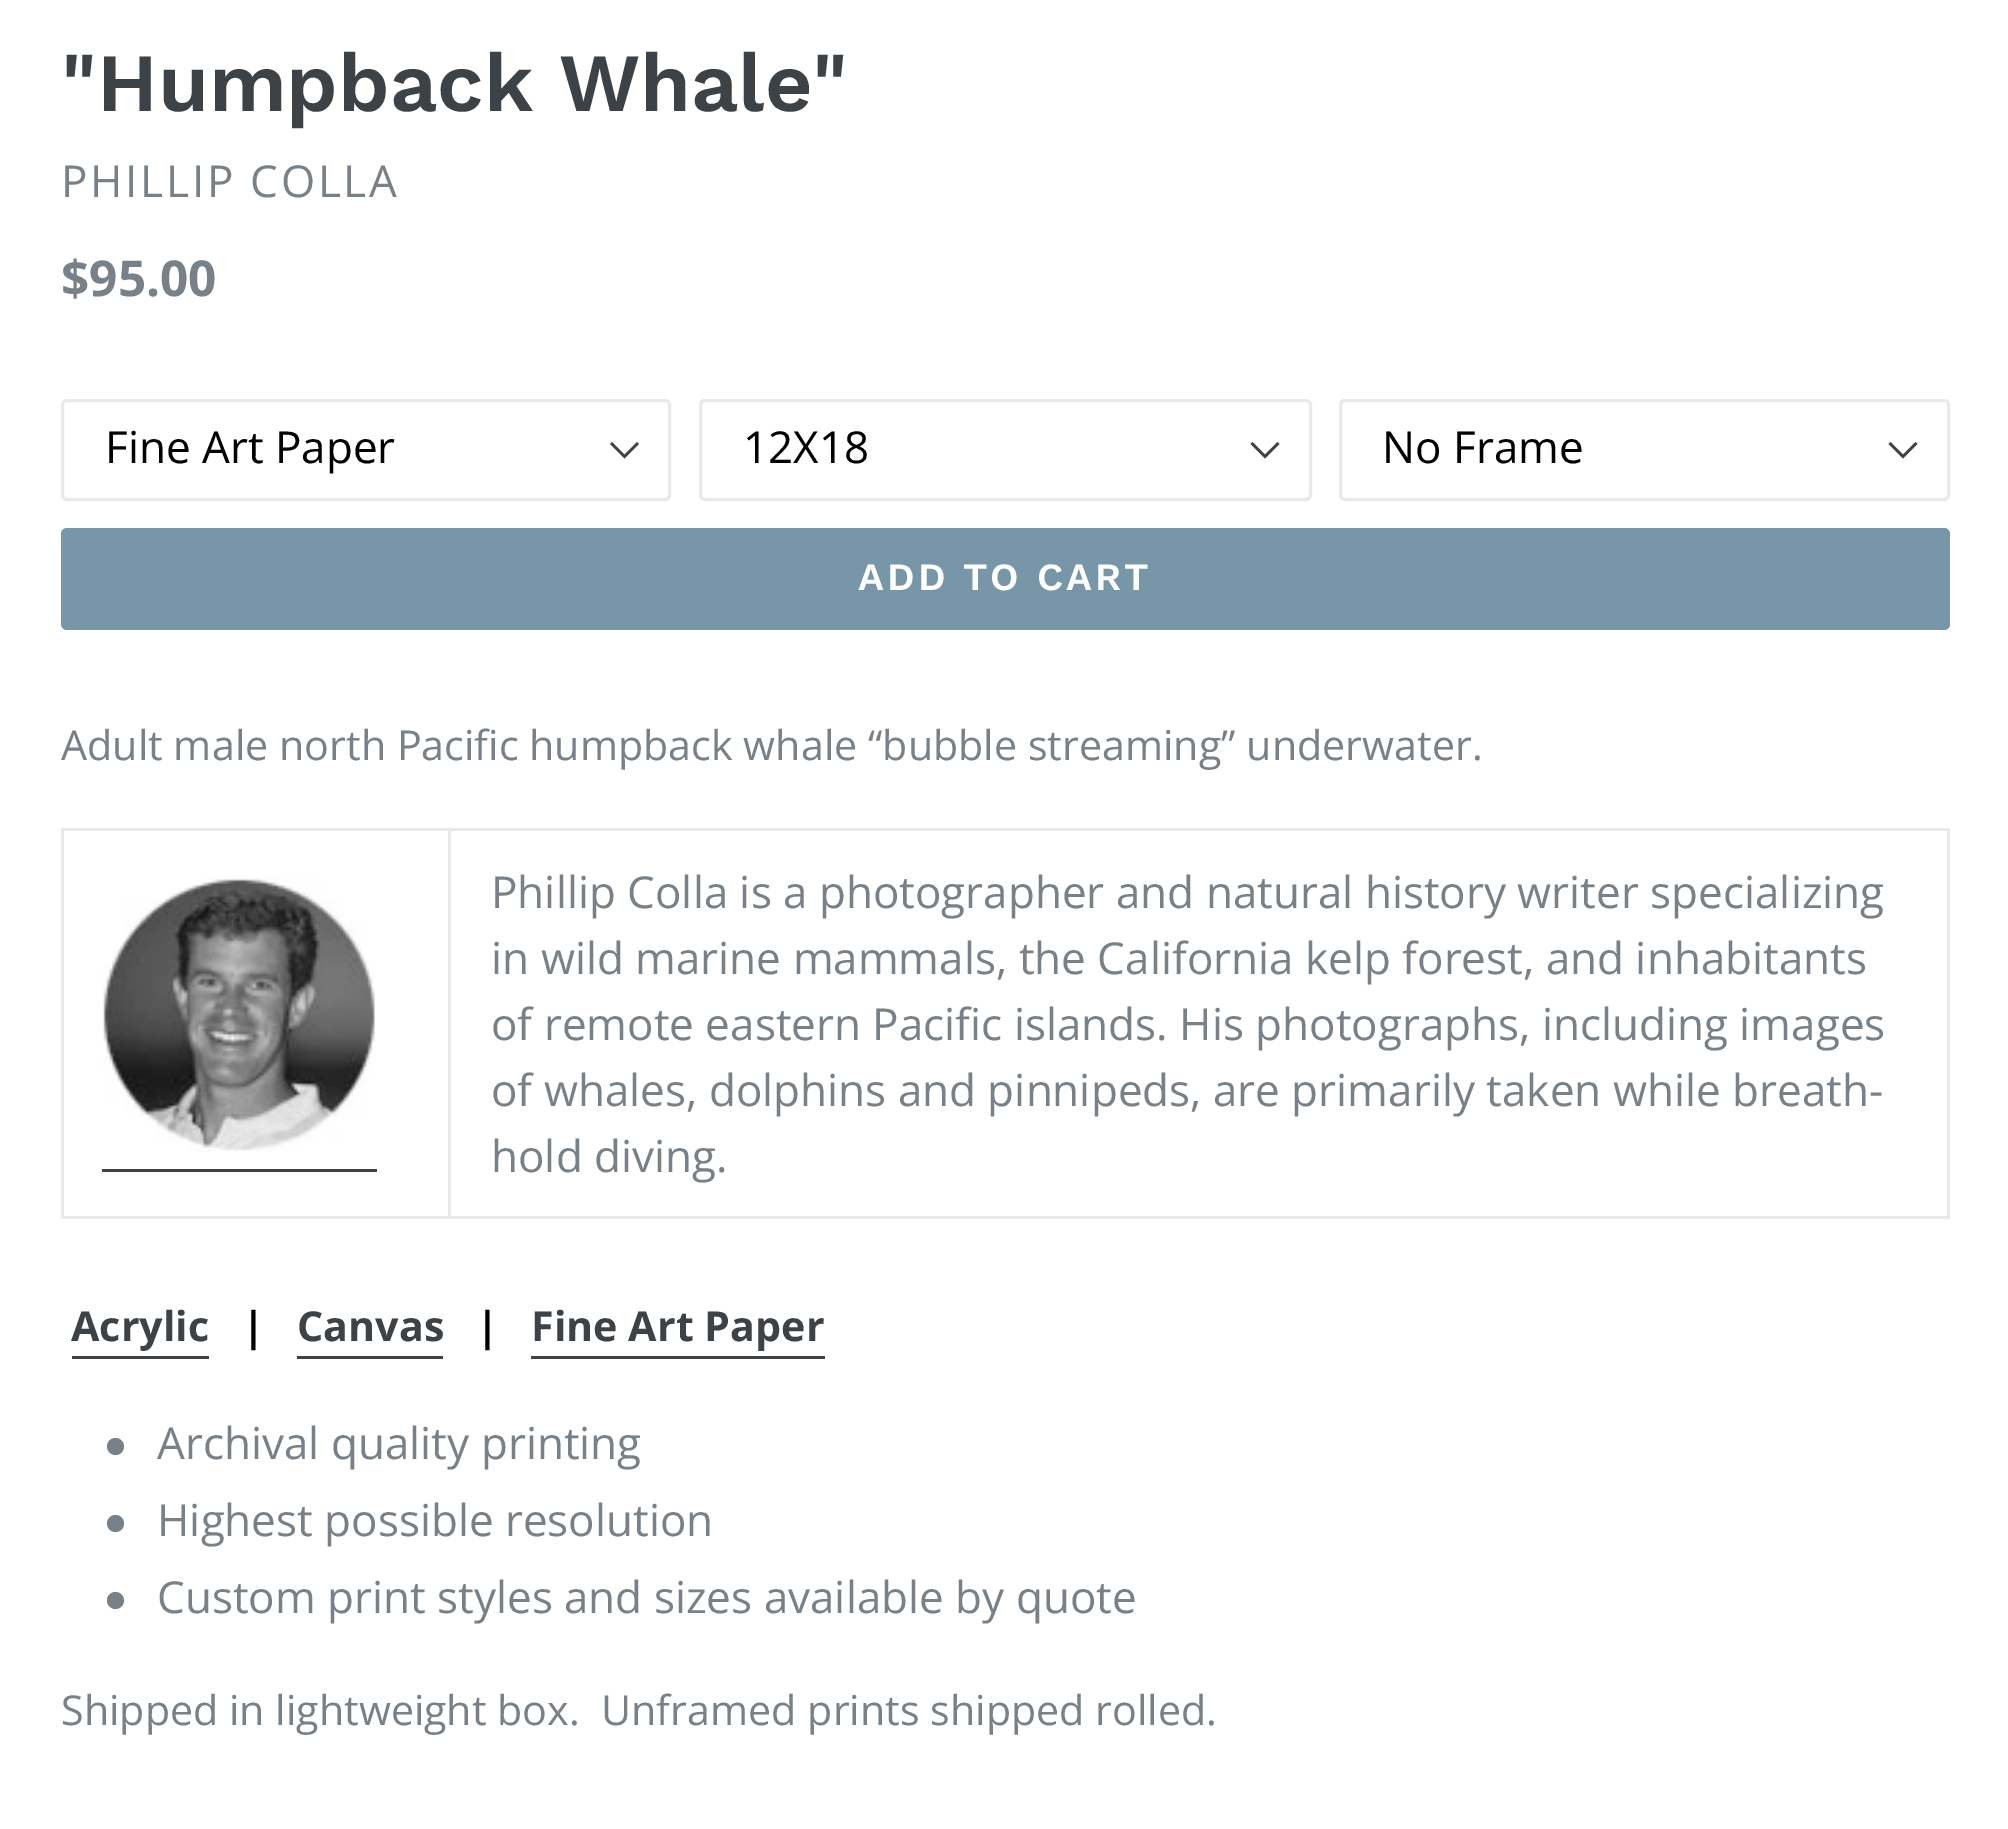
%!PS-Adobe-3.0
%%BoundingBox: 0 0 2008 1829
%%LanguageLevel: 3
%%Pages: 1
%%EndComments
%%BeginProlog
/m { moveto } bind def
/l { lineto } bind def
/h { closepath } bind def
/f { fill } bind def
/S { stroke } bind def
/w { setlinewidth } bind def
/fn { [ exch dup neg 0 0 3 -1 roll 0 0 ] selectfont } def
/tx { moveto show } def
/bx { rectfill } def
/ci { newpath 0 360 arc closepath } def
/rr { 5 dict begin { /r /h /w /y /x } { exch def } forall
  x r add y moveto x w add y 2 copy h add r arct x w add y h add x 1 index r arct
  x y h add x y r arct x y 2 copy exch w add exch r arct closepath end } def
/im { 5 dict begin { /h /w /y /x /name } { exch def } forall
  gsave x y translate w h scale
  w h 8 [w 0 0 h 0 0] name (r) file false 3 colorimage grestore end } def
%%EndProlog
%%BeginSetup
<< /PageSize [2008 1829] >> setpagedevice
%%EndSetup
%%Page: 1 1
0 1829 translate 1 -1 scale
4 setmiterlimit
1 setgray
0 0 2008 1829 bx
/WorkSans-SemiBold 82.5 fn
0.239 0.259 0.275 setrgbcolor
("Humpback Whale") 61 111 tx
/OpenSans-Regular 44 fn
0.471 0.506 0.533 setrgbcolor
61 197 m 2.75 0 (PHILLIP COLLA) ashow
/OpenSans-Bold 49.5 fn
($95.00) 61 296 tx
0.239 0.259 0.275 setrgbcolor
624.5 458.5 m 610 444 l 612 442 l 624.5 454.5 l 637 442 l 639 444 l h f
0.91 0.914 0.922 setrgbcolor
3 w
62.5 400.5 607 99 4.5 rr S
/OpenSans-Regular 44 fn
0 setgray
(Fine Art Paper) 105 463 tx
0.239 0.259 0.275 setrgbcolor
1265 458.5 m 1250.5 444 l 1252.5 442 l 1265 454.5 l 1277.5 442 l 1279.5 444 l h f
0.91 0.914 0.922 setrgbcolor
700.5 400.5 610 99 4.5 rr S
0 setgray
(12X18) 743 463 tx
0.239 0.259 0.275 setrgbcolor
1903 458.5 m 1888.5 444 l 1890.5 442 l 1903 454.5 l 1915.5 442 l 1917.5 444 l h f
0.91 0.914 0.922 setrgbcolor
1340.5 400.5 608 99 4.5 rr S
0 setgray
(No Frame) 1382 463 tx
0.467 0.588 0.659 setrgbcolor
61 528 1889 102 6 rr f
/WorkSans-SemiBold 38.5 fn
1 setgray
858 590 m 3 0 (ADD TO CART) ashow
/OpenSans-Regular 41.25 fn
0.471 0.506 0.533 setrgbcolor
(Adult male north Pacific humpback whale “bubble streaming” underwater.) 61 760 tx
0.91 0.914 0.922 setrgbcolor
448 828 1502 3 bx
1947 828 3 390 bx
448 1216 1502 3 bx
448 828 3 390 bx
61 828 390 3 bx
61 1216 390 3 bx
61 828 3 390 bx
(image0.raw) 103 877 272 275 im
0.239 0.259 0.275 setrgbcolor
102 1169 275 3 bx
/OpenSans-Regular 44 fn
0.471 0.506 0.533 setrgbcolor
(Phillip Colla is a photographer and natural history writer specializing) 491 908 tx
(in wild marine mammals, the California kelp forest, and inhabitants) 491 974 tx
(of remote eastern Pacific islands. His photographs, including images) 491 1040 tx
(of whales, dolphins and pinnipeds, are primarily taken while breath-) 491 1106 tx
(hold diving.) 491 1172 tx
/OpenSans-Bold 41.25 fn
0.239 0.259 0.275 setrgbcolor
(Acrylic) 71 1341 tx
72 1356 137 3 bx
0 setgray
(|) 242 1341 tx
0.239 0.259 0.275 setrgbcolor
(Canvas) 297 1341 tx
297 1356 146 3 bx
0 setgray
(|) 476 1341 tx
0.239 0.259 0.275 setrgbcolor
(Fine Art Paper) 531 1341 tx
531 1356 294 3 bx
0.471 0.506 0.533 setrgbcolor
115.5 1446.5 8.5 ci f
/OpenSans-Regular 44 fn
(Archival quality printing) 157 1459 tx
115.5 1523.5 8.5 ci f
(Highest possible resolution) 157 1536 tx
115.5 1600.5 8.5 ci f
(Custom print styles and sizes available by quote) 157 1613 tx
/OpenSans-Regular 41.25 fn
(Shipped in lightweight box.  Unframed prints shipped rolled.) 61 1725 tx
showpage
%%EOF
